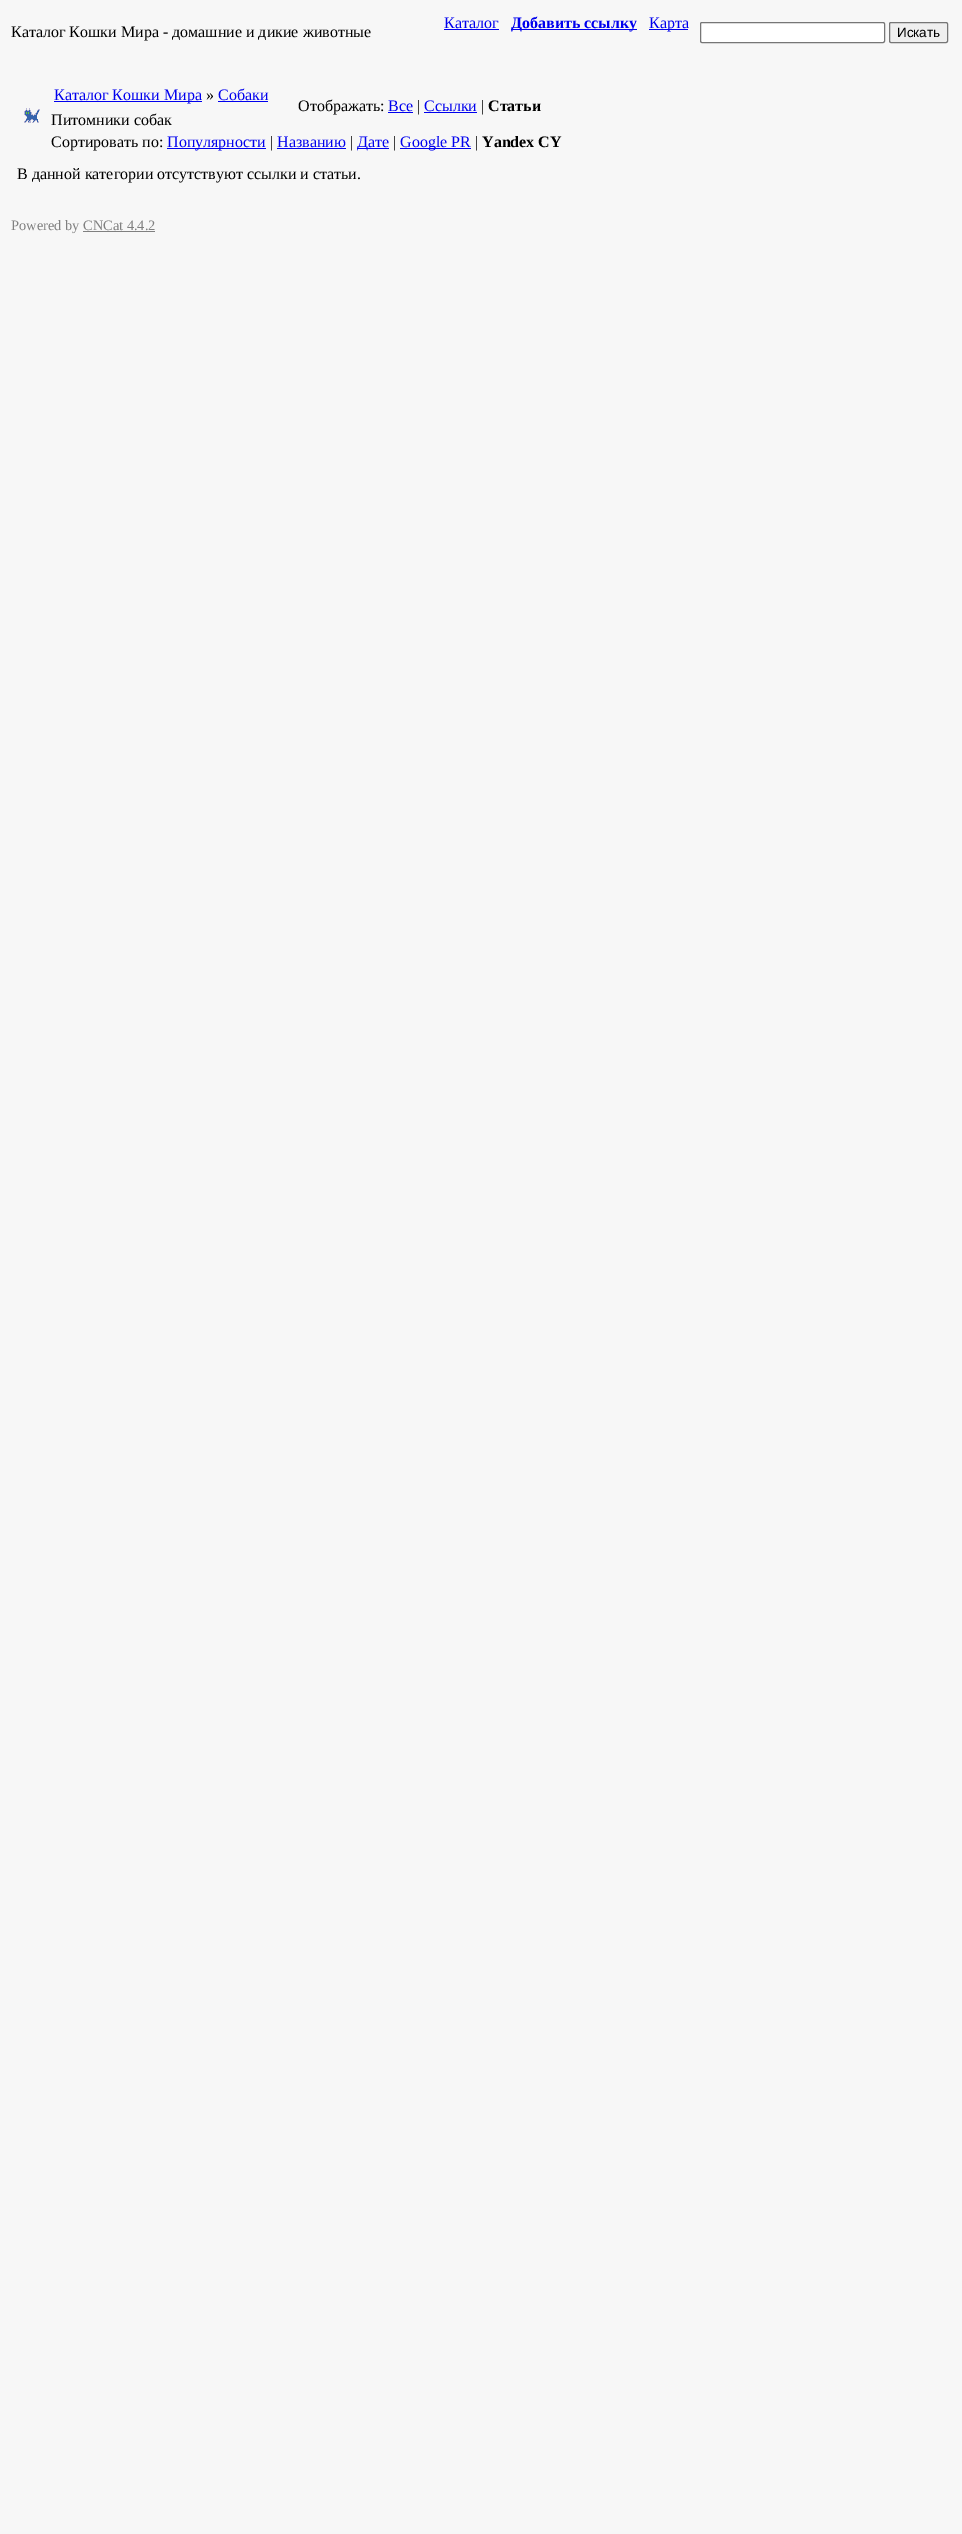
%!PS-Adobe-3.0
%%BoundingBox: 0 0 962 2534
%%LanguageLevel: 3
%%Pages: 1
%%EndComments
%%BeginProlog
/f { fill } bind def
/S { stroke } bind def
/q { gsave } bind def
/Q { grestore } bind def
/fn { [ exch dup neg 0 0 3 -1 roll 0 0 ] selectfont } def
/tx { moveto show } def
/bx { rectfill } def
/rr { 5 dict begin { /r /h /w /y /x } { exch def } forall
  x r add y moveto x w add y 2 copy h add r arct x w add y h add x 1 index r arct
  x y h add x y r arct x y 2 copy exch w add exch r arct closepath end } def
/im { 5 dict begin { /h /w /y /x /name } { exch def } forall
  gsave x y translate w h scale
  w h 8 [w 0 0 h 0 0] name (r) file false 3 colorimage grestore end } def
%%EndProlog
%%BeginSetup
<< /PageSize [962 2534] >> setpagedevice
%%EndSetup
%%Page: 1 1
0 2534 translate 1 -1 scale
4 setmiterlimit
0.969 setgray
0 0 962 2534 bx
/LiberationSerif-Regular 16 fn
0 setgray
(Каталог Кошки Мира - домашние и дикие животные) 11 37 tx
0 0 0.933 setrgbcolor
(Каталог) 444 28 tx
444 29 55 1 bx
511 29 126 1 bx
/LiberationSerif-Bold 16 fn
(Добавить ссылку) 511 28 tx
649 29 39 1 bx
/LiberationSerif-Regular 16 fn
(Карта) 649 28 tx
1 setgray
700.5 22.5 184 20 1.5 rr q f Q
0.463 setgray
S
0.937 setgray
889.5 22.5 58 20 1.5 rr q f Q
0.463 setgray
S
/LiberationSans-Regular 13.5 fn
0 setgray
(Искать) 897 37 tx
(image0.raw) 24 108 16 15 im
0 0 0.933 setrgbcolor
54 101 148 1 bx
/LiberationSerif-Regular 16 fn
(Каталог Кошки Мира) 54 100 tx
0 setgray
(») 206 100 tx
0 0 0.933 setrgbcolor
(Собаки) 218 100 tx
218 101 50 1 bx
0 setgray
(Отображать:) 298 111 tx
0 0 0.933 setrgbcolor
(Все) 388 111 tx
388 112 25 1 bx
0 setgray
(|) 417 111 tx
0 0 0.933 setrgbcolor
(Ссылки) 424 111 tx
424 112 53 1 bx
0 setgray
(|) 481 111 tx
/LiberationSerif-Bold 16 fn
(Статьи) 488 111 tx
/LiberationSerif-Regular 16 fn
(Питомники собак) 51 125 tx
(Сортировать по:) 51 147 tx
0 0 0.933 setrgbcolor
167 148 99 1 bx
(Популярности) 167 147 tx
0 setgray
(|) 270 147 tx
0 0 0.933 setrgbcolor
(Названию) 277 147 tx
277 148 69 1 bx
0 setgray
(|) 350 147 tx
0 0 0.933 setrgbcolor
357 148 32 1 bx
(Дате) 357 147 tx
0 setgray
(|) 393 147 tx
0 0 0.933 setrgbcolor
400 148 71 1 bx
(Google PR) 400 147 tx
0 setgray
(|) 475 147 tx
/LiberationSerif-Bold 16 fn
(Yandex CY) 482 147 tx
/LiberationSerif-Regular 16 fn
(В данной категории отсутствуют ссылки и статьи.) 17 179 tx
/LiberationSerif-Regular 14.4 fn
0.502 setgray
(Powered by CNCat 4.4.2) 11 230 tx
83 231 72 1 bx
showpage
%%EOF
